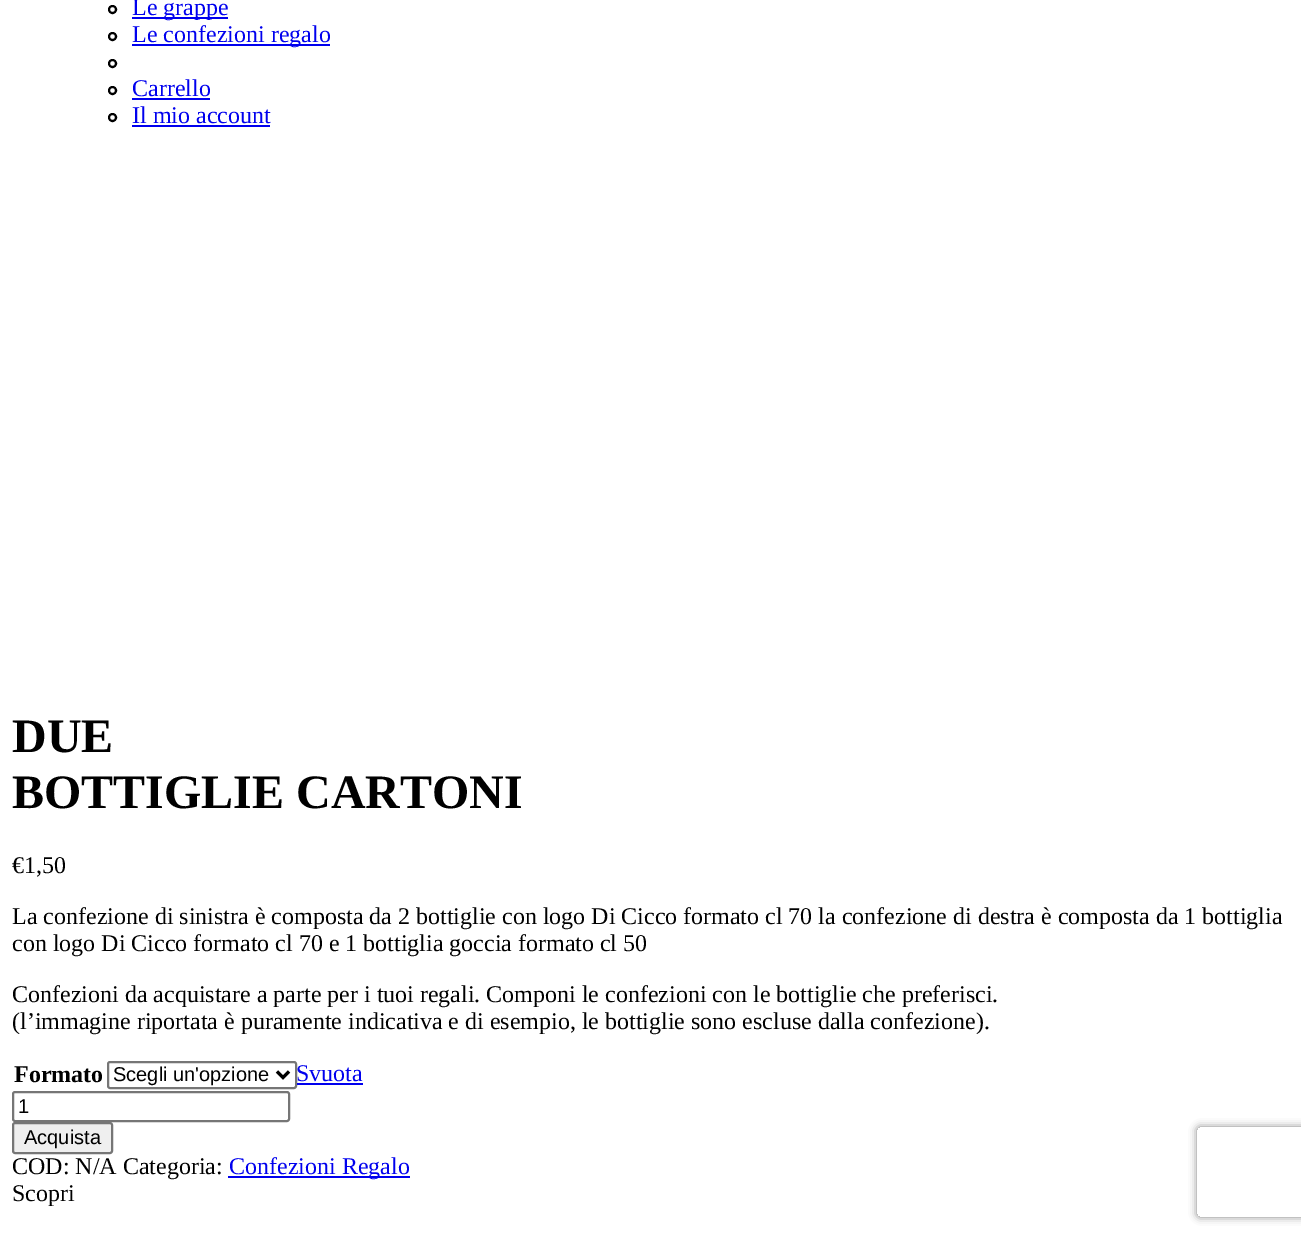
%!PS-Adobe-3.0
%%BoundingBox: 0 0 1301 1237
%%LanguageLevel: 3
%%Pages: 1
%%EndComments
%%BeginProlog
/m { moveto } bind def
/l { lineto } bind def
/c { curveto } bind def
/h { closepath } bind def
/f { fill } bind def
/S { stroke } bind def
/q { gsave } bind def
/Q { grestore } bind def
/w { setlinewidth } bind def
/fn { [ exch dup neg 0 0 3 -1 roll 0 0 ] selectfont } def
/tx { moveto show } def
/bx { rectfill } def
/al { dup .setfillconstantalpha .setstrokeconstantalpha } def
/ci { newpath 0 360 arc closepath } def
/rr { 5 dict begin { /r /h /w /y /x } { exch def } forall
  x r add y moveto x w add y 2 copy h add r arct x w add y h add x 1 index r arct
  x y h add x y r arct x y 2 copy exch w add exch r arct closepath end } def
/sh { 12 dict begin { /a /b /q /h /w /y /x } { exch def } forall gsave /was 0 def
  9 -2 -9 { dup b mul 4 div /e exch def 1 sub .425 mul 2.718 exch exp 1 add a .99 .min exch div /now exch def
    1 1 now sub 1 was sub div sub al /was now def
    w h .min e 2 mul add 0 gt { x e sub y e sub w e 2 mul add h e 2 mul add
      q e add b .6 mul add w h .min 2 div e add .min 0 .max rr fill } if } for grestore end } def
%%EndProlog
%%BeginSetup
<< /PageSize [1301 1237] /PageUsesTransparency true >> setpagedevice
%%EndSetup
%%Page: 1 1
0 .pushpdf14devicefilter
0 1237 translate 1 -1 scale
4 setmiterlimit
1 setgray
0 0 1301 1237 bx
0 setgray
2 w
112.5 9.5 3.5 ci S
0 0 0.933 setrgbcolor
132 17 96 2 bx
/LiberationSerif-Regular 24 fn
(Le grappe) 132 15 tx
0 setgray
112.5 36.5 3.5 ci S
0 0 0.933 setrgbcolor
132 44 198 2 bx
(Le confezioni regalo) 132 42 tx
0 setgray
112.5 63.5 3.5 ci S
112.5 90.5 3.5 ci S
0 0 0.933 setrgbcolor
(Carrello) 132 96 tx
132 98 78 2 bx
0 setgray
112.5 117.5 3.5 ci S
0 0 0.933 setrgbcolor
(Il mio account) 132 123 tx
132 125 138 2 bx
/LiberationSerif-Bold 48 fn
0 setgray
(DUE) 12 752 tx
(BOTTIGLIE CARTONI) 12 808 tx
/LiberationSerif-Regular 24 fn
(€1,50) 12 873 tx
(La confezione di sinistra è composta da 2 bottiglie con logo Di Cicco formato cl 70 la confezione di destra è composta da 1 bottiglia) 12 924 tx
(con logo Di Cicco formato cl 70 e 1 bottiglia goccia formato cl 50) 12 951 tx
(Confezioni da acquistare a parte per i tuoi regali. Componi le confezioni con le bottiglie che preferisci.) 12 1002 tx
(\(l’immagine riportata è puramente indicativa e di esempio, le bottiglie sono escluse dalla confezione\).) 12 1029 tx
/LiberationSerif-Bold 24 fn
(Formato) 14 1082 tx
0.463 setgray
108 1062 188 26 2 rr S
0 setgray
3 w
277 1071.5 m 283 1077.5 l 289 1071.5 l S
/LiberationSans-Regular 20 fn
(Scegli un'opzione) 113 1081 tx
/LiberationSerif-Regular 24 fn
0 0 0.933 setrgbcolor
(Svuota) 296 1081 tx
297 1083 66 2 bx
0.463 setgray
2 w
13 1092 276 29 2 rr S
/LiberationSans-Regular 20 fn
0 setgray
(1) 18 1113 tx
0.937 setgray
13 1123 99 30 2 rr q f Q
0.463 setgray
S
0 setgray
(Acquista) 24 1144 tx
/LiberationSerif-Regular 24 fn
(COD: N/A Categoria:) 12 1174 tx
0 0 0.933 setrgbcolor
228 1176 182 2 bx
(Confezioni Regalo) 229 1174 tx
0 setgray
(Scopri) 12 1201 tx
q
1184 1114 m 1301 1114 l 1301 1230 l 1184 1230 l h 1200 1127 m 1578 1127 l 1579.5 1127 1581 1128.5 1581 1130 c 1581 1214 l 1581 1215.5 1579.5 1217 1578 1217 c 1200 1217 l 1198.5 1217 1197 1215.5 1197 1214 c 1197 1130 l 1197 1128.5 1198.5 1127 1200 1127 c h eoclip newpath
0.502 setgray
1197 1127 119 90 3 4 1 sh
Q
.poppdf14devicefilter showpage
%%EOF
